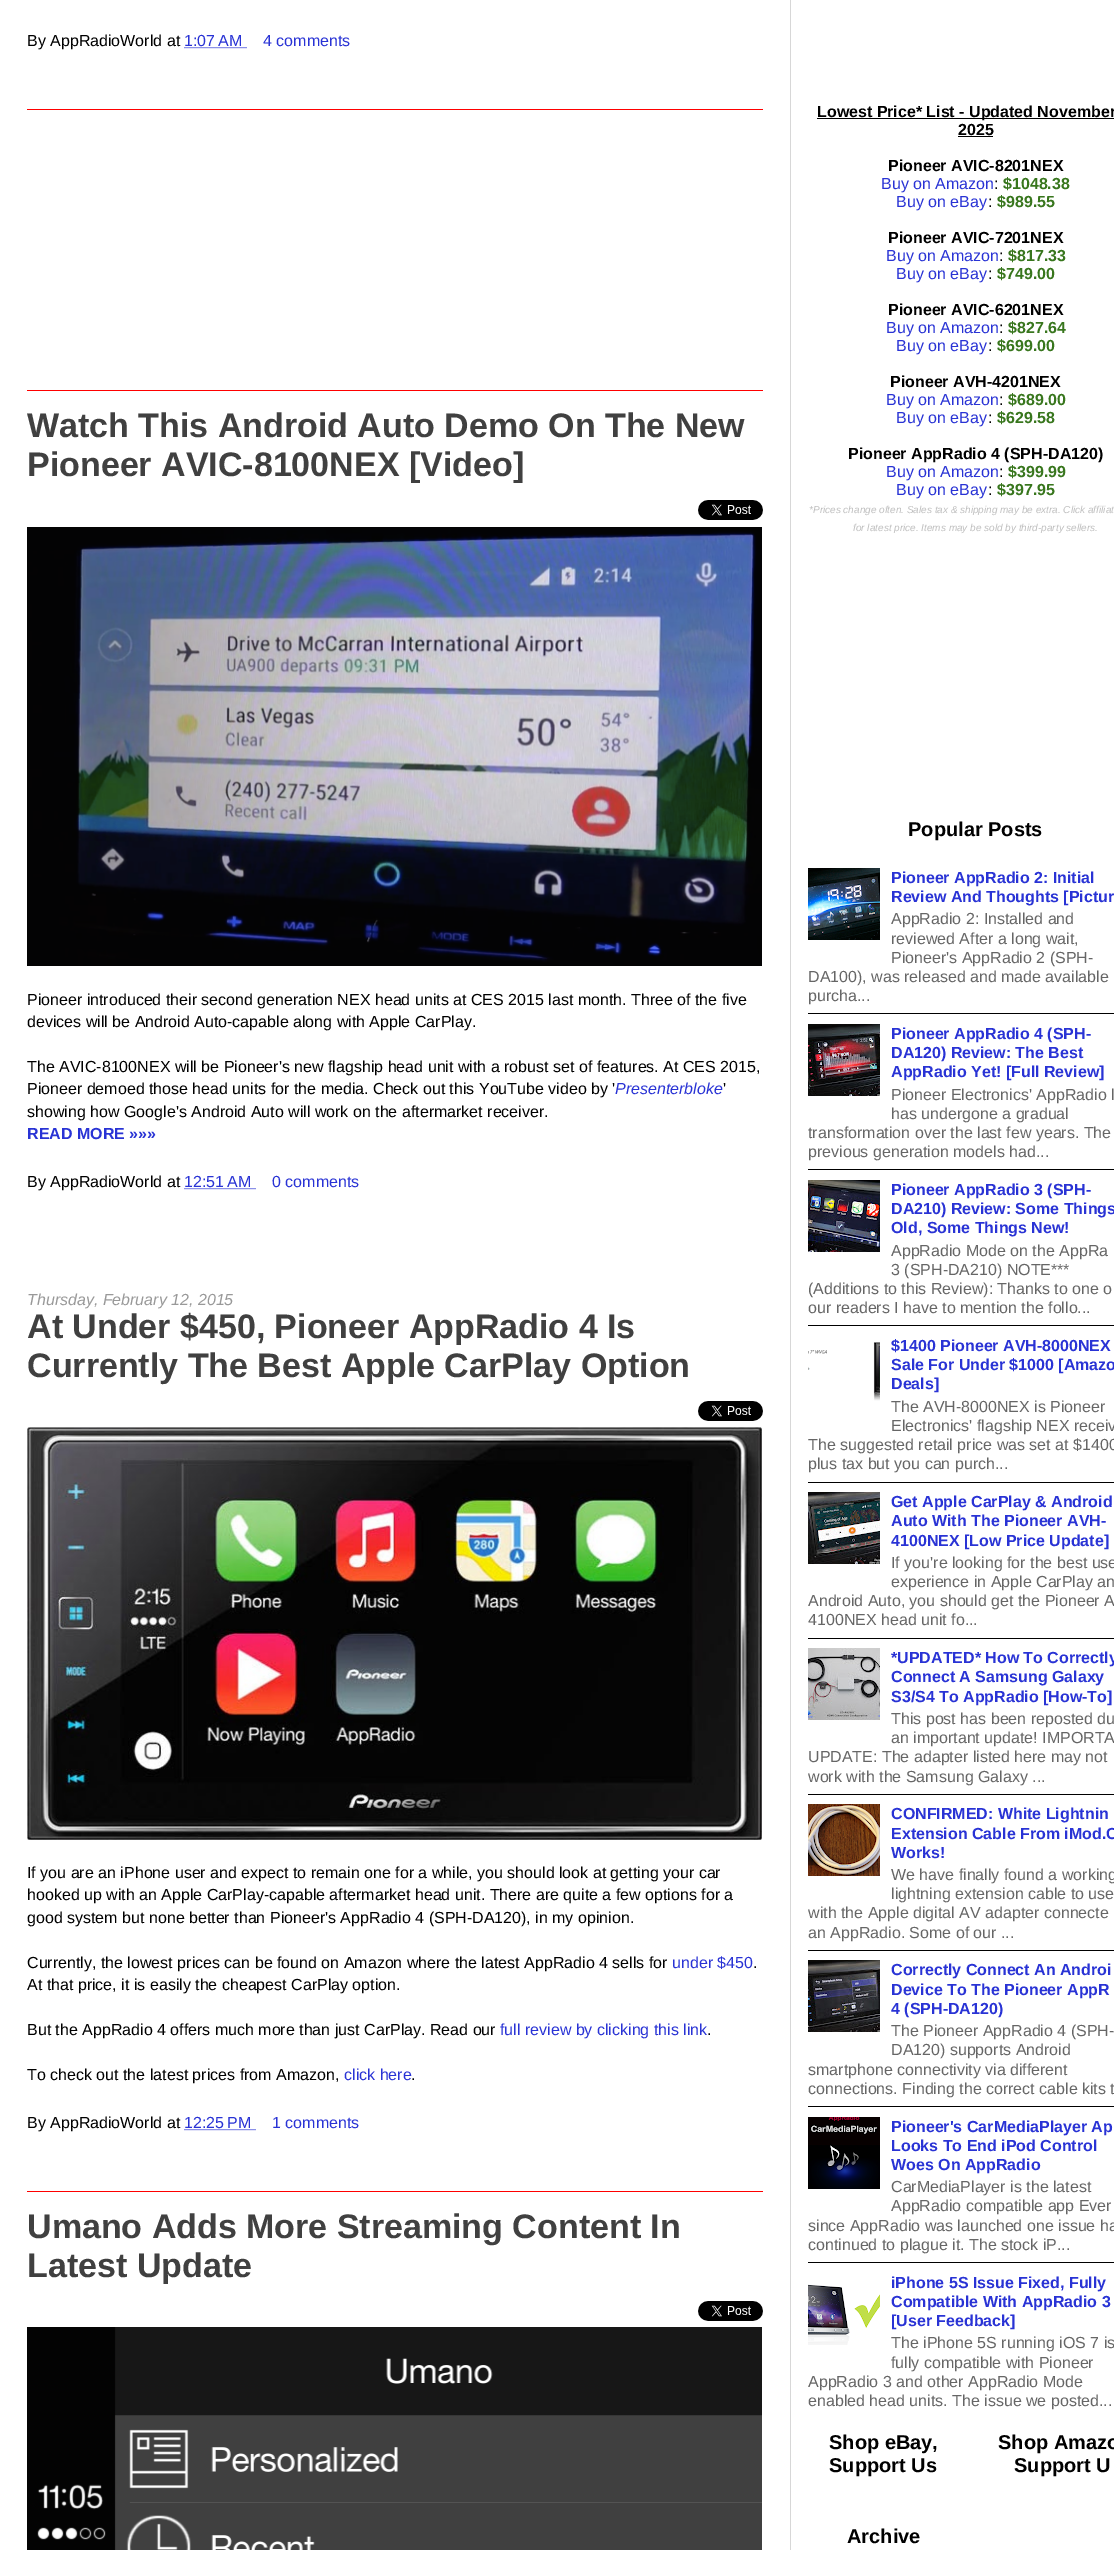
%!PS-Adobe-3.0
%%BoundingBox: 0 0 1114 2550
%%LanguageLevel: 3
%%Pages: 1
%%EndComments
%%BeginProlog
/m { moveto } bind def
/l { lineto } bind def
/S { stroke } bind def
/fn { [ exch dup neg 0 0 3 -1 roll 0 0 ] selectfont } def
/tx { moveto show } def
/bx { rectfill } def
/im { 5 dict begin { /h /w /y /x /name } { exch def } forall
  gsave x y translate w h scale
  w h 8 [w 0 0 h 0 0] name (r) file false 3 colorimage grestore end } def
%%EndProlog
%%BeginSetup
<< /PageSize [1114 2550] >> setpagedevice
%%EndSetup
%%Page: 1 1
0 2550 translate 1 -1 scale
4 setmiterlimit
1 setgray
0 0 1114 2550 bx
/LiberationSans-Regular 16 fn
0 setgray
(By AppRadioWorld at) 27 46 tx
0.161 0.2 0.835 setrgbcolor
(1:07 AM) 184 46 tx
[1 1] 0 setdash
184.5 47.5 m 247 47.5 l S
(4 comments) 263 46 tx
1 0 0 setrgbcolor
27 109 736 1 bx
27 390 736 1 bx
/LiberationSans-Bold 34 fn
0.251 setgray
(Watch This Android Auto Demo On The New) 27 437 tx
(Pioneer AVIC-8100NEX [Video]) 27 476 tx
(image0.raw) 698 500 65 20 im
(image1.raw) 27 527 735 439 im
/LiberationSans-Regular 16 fn
0 setgray
(Pioneer introduced their second generation NEX head units at CES 2015 last month. Three of the five) 27 1005 tx
(devices will be Android Auto-capable along with Apple CarPlay.) 27 1027 tx
(The AVIC-8100NEX will be Pioneer's new flagship head unit with a robust set of features. At CES 2015,) 27 1072 tx
(Pioneer demoed those head units for the media. Check out this YouTube video by ') 27 1094 tx
/LiberationSans-Italic 16 fn
0.161 0.2 0.835 setrgbcolor
(Presenterbloke) 615 1094 tx
/LiberationSans-Regular 16 fn
0 setgray
(') 723 1094 tx
(showing how Google's Android Auto will work on the aftermarket receiver.) 27 1117 tx
/LiberationSans-Bold 16 fn
0.161 0.2 0.835 setrgbcolor
(READ MORE »»») 27 1139 tx
/LiberationSans-Regular 16 fn
0 setgray
(By AppRadioWorld at) 27 1187 tx
0.161 0.2 0.835 setrgbcolor
(12:51 AM) 184 1187 tx
184.5 1188.5 m 256 1188.5 l S
(0 comments) 272 1187 tx
/LiberationSans-Italic 16 fn
0.6 setgray
(Thursday, February 12, 2015) 27 1305 tx
/LiberationSans-Bold 34 fn
0.251 setgray
(At Under $450, Pioneer AppRadio 4 Is) 27 1338 tx
(Currently The Best Apple CarPlay Option) 27 1377 tx
(image0.raw) 698 1401 65 20 im
(image2.raw) 27 1427 735 413 im
/LiberationSans-Regular 16 fn
0 setgray
(If you are an iPhone user and expect to remain one for a while, you should look at getting your car) 27 1878 tx
(hooked up with an Apple CarPlay-capable aftermarket head unit. There are quite a few options for a) 27 1900 tx
(good system but none better than Pioneer's AppRadio 4 \(SPH-DA120\), in my opinion.) 27 1923 tx
(Currently, the lowest prices can be found on Amazon where the latest AppRadio 4 sells for) 27 1968 tx
0.161 0.2 0.835 setrgbcolor
(under $450) 672 1968 tx
0 setgray
(.) 753 1968 tx
(At that price, it is easily the cheapest CarPlay option.) 27 1990 tx
(But the AppRadio 4 offers much more than just CarPlay. Read our) 27 2035 tx
0.161 0.2 0.835 setrgbcolor
(full review by clicking this link) 500 2035 tx
0 setgray
(.) 707 2035 tx
(To check out the latest prices from Amazon,) 27 2080 tx
0.161 0.2 0.835 setrgbcolor
(click here) 344 2080 tx
0 setgray
(.) 411 2080 tx
(By AppRadioWorld at) 27 2128 tx
0.161 0.2 0.835 setrgbcolor
(12:25 PM) 184 2128 tx
184.5 2129.5 m 256 2129.5 l S
(1 comments) 272 2128 tx
1 0 0 setrgbcolor
27 2191 736 1 bx
/LiberationSans-Bold 34 fn
0.251 setgray
(Umano Adds More Streaming Content In) 27 2238 tx
(Latest Update) 27 2277 tx
(image0.raw) 698 2301 65 20 im
(image3.raw) 27 2327 735 223 im
0.843 setgray
790 0 1 2550 bx
0 setgray
817 118 297 1 bx
/LiberationSans-Bold 16 fn
(Lowest Price* List - Updated November) 817 117 tx
(2025) 958 135 tx
958 136 35 1 bx
(Pioneer AVIC-8201NEX) 888 171 tx
/LiberationSans-Regular 16 fn
0.161 0.2 0.835 setrgbcolor
(Buy on Amazon) 881 189 tx
0 setgray
(:) 994 189 tx
/LiberationSans-Bold 16 fn
0.22 0.463 0.114 setrgbcolor
($1048.38) 1003 189 tx
/LiberationSans-Regular 16 fn
0.161 0.2 0.835 setrgbcolor
(Buy on eBay) 896 207 tx
0 setgray
(:) 988 207 tx
/LiberationSans-Bold 16 fn
0.22 0.463 0.114 setrgbcolor
($989.55) 997 207 tx
0 setgray
(Pioneer AVIC-7201NEX) 888 243 tx
/LiberationSans-Regular 16 fn
0.161 0.2 0.835 setrgbcolor
(Buy on Amazon) 886 261 tx
0 setgray
(:) 999 261 tx
/LiberationSans-Bold 16 fn
0.22 0.463 0.114 setrgbcolor
($817.33) 1008 261 tx
/LiberationSans-Regular 16 fn
0.161 0.2 0.835 setrgbcolor
(Buy on eBay) 896 279 tx
0 setgray
(:) 988 279 tx
/LiberationSans-Bold 16 fn
0.22 0.463 0.114 setrgbcolor
($749.00) 997 279 tx
0 setgray
(Pioneer AVIC-6201NEX) 888 315 tx
/LiberationSans-Regular 16 fn
0.161 0.2 0.835 setrgbcolor
(Buy on Amazon) 886 333 tx
0 setgray
(:) 999 333 tx
/LiberationSans-Bold 16 fn
0.22 0.463 0.114 setrgbcolor
($827.64) 1008 333 tx
/LiberationSans-Regular 16 fn
0.161 0.2 0.835 setrgbcolor
(Buy on eBay) 896 351 tx
0 setgray
(:) 988 351 tx
/LiberationSans-Bold 16 fn
0.22 0.463 0.114 setrgbcolor
($699.00) 997 351 tx
0 setgray
(Pioneer AVH-4201NEX) 890 387 tx
/LiberationSans-Regular 16 fn
0.161 0.2 0.835 setrgbcolor
(Buy on Amazon) 886 405 tx
0 setgray
(:) 999 405 tx
/LiberationSans-Bold 16 fn
0.22 0.463 0.114 setrgbcolor
($689.00) 1008 405 tx
/LiberationSans-Regular 16 fn
0.161 0.2 0.835 setrgbcolor
(Buy on eBay) 896 423 tx
0 setgray
(:) 988 423 tx
/LiberationSans-Bold 16 fn
0.22 0.463 0.114 setrgbcolor
($629.58) 997 423 tx
0 setgray
(Pioneer AppRadio 4 \(SPH-DA120\)) 848 459 tx
/LiberationSans-Regular 16 fn
0.161 0.2 0.835 setrgbcolor
(Buy on Amazon) 886 477 tx
0 setgray
(:) 999 477 tx
/LiberationSans-Bold 16 fn
0.22 0.463 0.114 setrgbcolor
($399.99) 1008 477 tx
/LiberationSans-Regular 16 fn
0.161 0.2 0.835 setrgbcolor
(Buy on eBay) 896 495 tx
0 setgray
(:) 988 495 tx
/LiberationSans-Bold 16 fn
0.22 0.463 0.114 setrgbcolor
($397.95) 997 495 tx
/LiberationSans-Italic 10 fn
0.753 setgray
(*Prices change often. Sales tax & shipping may be extra. Click affiliat) 809 513 tx
(for latest price. Items may be sold by third-party sellers.) 853 531 tx
/LiberationSans-Bold 20 fn
0 setgray
(Popular Posts) 908 836 tx
808 1013 306 1 bx
(image4.raw) 808 868 72 72 im
/LiberationSans-Bold 16 fn
0.161 0.2 0.835 setrgbcolor
(Pioneer AppRadio 2: Initial) 891 883 tx
(Review And Thoughts [Pictur) 891 902 tx
/LiberationSans-Regular 16 fn
0.4 setgray
(AppRadio 2: Installed and) 891 924 tx
(reviewed After a long wait,) 891 944 tx
(Pioneer's AppRadio 2 \(SPH-) 891 963 tx
(DA100\), was released and made available) 808 982 tx
(purcha...) 808 1001 tx
0 setgray
808 1169 306 1 bx
(image5.raw) 808 1024 72 72 im
/LiberationSans-Bold 16 fn
0.161 0.2 0.835 setrgbcolor
(Pioneer AppRadio 4 \(SPH-) 891 1039 tx
(DA120\) Review: The Best) 891 1058 tx
(AppRadio Yet! [Full Review]) 891 1077 tx
/LiberationSans-Regular 16 fn
0.4 setgray
(Pioneer Electronics' AppRadio l) 891 1100 tx
(has undergone a gradual) 891 1119 tx
(transformation over the last few years. The) 808 1138 tx
(previous generation models had...) 808 1157 tx
0 setgray
808 1325 306 1 bx
(image6.raw) 808 1180 72 72 im
/LiberationSans-Bold 16 fn
0.161 0.2 0.835 setrgbcolor
(Pioneer AppRadio 3 \(SPH-) 891 1195 tx
(DA210\) Review: Some Things) 891 1214 tx
(Old, Some Things New!) 891 1233 tx
/LiberationSans-Regular 16 fn
0.4 setgray
(AppRadio Mode on the AppRa) 891 1256 tx
(3 \(SPH-DA210\) NOTE***) 891 1275 tx
(\(Additions to this Review\): Thanks to one o) 808 1294 tx
(our readers I have to mention the follo...) 808 1313 tx
0 setgray
808 1482 306 1 bx
(image7.raw) 808 1342 72 59 im
/LiberationSans-Bold 16 fn
0.161 0.2 0.835 setrgbcolor
($1400 Pioneer AVH-8000NEX) 891 1351 tx
(Sale For Under $1000 [Amazo) 891 1370 tx
(Deals]) 891 1389 tx
/LiberationSans-Regular 16 fn
0.4 setgray
(The AVH-8000NEX is Pioneer) 891 1412 tx
(Electronics' flagship NEX receiv) 891 1431 tx
(The suggested retail price was set at $1400) 808 1450 tx
(plus tax but you can purch...) 808 1469 tx
0 setgray
808 1638 306 1 bx
(image8.raw) 808 1492 72 72 im
/LiberationSans-Bold 16 fn
0.161 0.2 0.835 setrgbcolor
(Get Apple CarPlay & Android) 891 1507 tx
(Auto With The Pioneer AVH-) 891 1526 tx
(4100NEX [Low Price Update]) 891 1546 tx
/LiberationSans-Regular 16 fn
0.4 setgray
(If you're looking for the best use) 891 1568 tx
(experience in Apple CarPlay an) 891 1587 tx
(Android Auto, you should get the Pioneer A) 808 1606 tx
(4100NEX head unit fo...) 808 1625 tx
0 setgray
808 1794 306 1 bx
(image9.raw) 808 1648 72 72 im
/LiberationSans-Bold 16 fn
0.161 0.2 0.835 setrgbcolor
(*UPDATED* How To Correctly) 891 1663 tx
(Connect A Samsung Galaxy) 891 1682 tx
(S3/S4 To AppRadio [How-To]) 891 1702 tx
/LiberationSans-Regular 16 fn
0.4 setgray
(This post has been reposted du) 891 1724 tx
(an important update! IMPORTA) 891 1743 tx
(UPDATE: The adapter listed here may not) 808 1762 tx
(work with the Samsung Galaxy ...) 808 1782 tx
0 setgray
808 1950 306 1 bx
(image10.raw) 808 1804 72 72 im
/LiberationSans-Bold 16 fn
0.161 0.2 0.835 setrgbcolor
(CONFIRMED: White Lightnin) 891 1819 tx
(Extension Cable From iMod.C) 891 1839 tx
(Works!) 891 1858 tx
/LiberationSans-Regular 16 fn
0.4 setgray
(We have finally found a working) 891 1880 tx
(lightning extension cable to use) 891 1899 tx
(with the Apple digital AV adapter connecte) 808 1918 tx
(an AppRadio. Some of our ...) 808 1938 tx
0 setgray
808 2106 306 1 bx
(image11.raw) 808 1960 72 72 im
/LiberationSans-Bold 16 fn
0.161 0.2 0.835 setrgbcolor
(Correctly Connect An Androi) 891 1975 tx
(Device To The Pioneer AppR) 891 1995 tx
(4 \(SPH-DA120\)) 891 2014 tx
/LiberationSans-Regular 16 fn
0.4 setgray
(The Pioneer AppRadio 4 \(SPH-) 891 2036 tx
(DA120\) supports Android) 891 2055 tx
(smartphone connectivity via different) 808 2075 tx
(connections. Finding the correct cable kits t) 808 2094 tx
0 setgray
808 2262 306 1 bx
(image12.raw) 808 2117 72 72 im
/LiberationSans-Bold 16 fn
0.161 0.2 0.835 setrgbcolor
(Pioneer's CarMediaPlayer Ap) 891 2132 tx
(Looks To End iPod Control) 891 2151 tx
(Woes On AppRadio) 891 2170 tx
/LiberationSans-Regular 16 fn
0.4 setgray
(CarMediaPlayer is the latest) 891 2192 tx
(AppRadio compatible app Ever) 891 2211 tx
(since AppRadio was launched one issue ha) 808 2231 tx
(continued to plague it. The stock iP...) 808 2250 tx
(image13.raw) 808 2284 72 61 im
/LiberationSans-Bold 16 fn
0.161 0.2 0.835 setrgbcolor
(iPhone 5S Issue Fixed, Fully) 891 2288 tx
(Compatible With AppRadio 3) 891 2307 tx
([User Feedback]) 891 2326 tx
/LiberationSans-Regular 16 fn
0.4 setgray
(The iPhone 5S running iOS 7 is) 891 2348 tx
(fully compatible with Pioneer) 891 2368 tx
(AppRadio 3 and other AppRadio Mode) 808 2387 tx
(enabled head units. The issue we posted...) 808 2406 tx
/LiberationSans-Bold 20 fn
0 setgray
(Shop eBay,) 829 2449 tx
(Support Us) 829 2472 tx
(Archive) 847 2543 tx
(Shop Amazo) 998 2449 tx
(Support U) 1014 2472 tx
showpage
%%EOF
